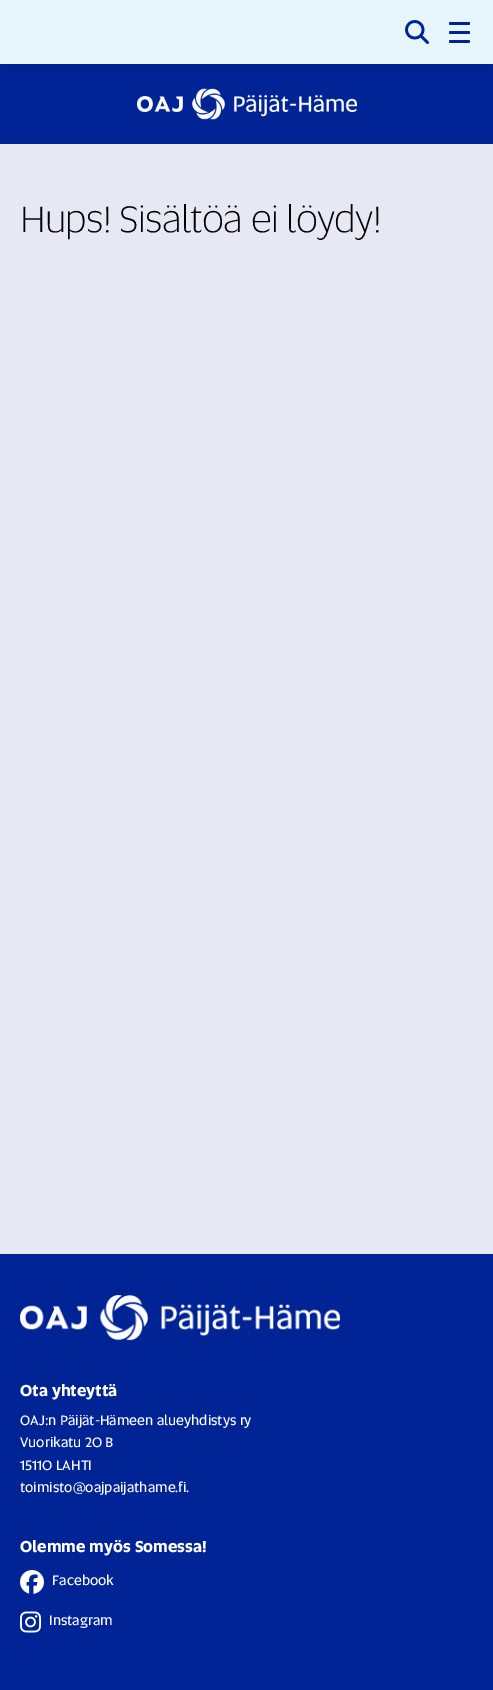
%!PS-Adobe-3.0
%%BoundingBox: 0 0 493 1690
%%LanguageLevel: 3
%%Pages: 1
%%EndComments
%%BeginProlog
/m { moveto } bind def
/f { fill } bind def
/fn { [ exch dup neg 0 0 3 -1 roll 0 0 ] selectfont } def
/tx { moveto show } def
/bx { rectfill } def
/al { dup .setfillconstantalpha .setstrokeconstantalpha } def
/rr { 5 dict begin { /r /h /w /y /x } { exch def } forall
  x r add y moveto x w add y 2 copy h add r arct x w add y h add x 1 index r arct
  x y h add x y r arct x y 2 copy exch w add exch r arct closepath end } def
/sh { 12 dict begin { /a /b /q /h /w /y /x } { exch def } forall gsave /was 0 def
  9 -2 -9 { dup b mul 4 div /e exch def 1 sub .425 mul 2.718 exch exp 1 add a .99 .min exch div /now exch def
    1 1 now sub 1 was sub div sub al /was now def
    w h .min e 2 mul add 0 gt { x e sub y e sub w e 2 mul add h e 2 mul add
      q e add b .6 mul add w h .min 2 div e add .min 0 .max rr fill } if } for grestore end } def
/im { 5 dict begin { /h /w /y /x /name } { exch def } forall
  gsave x y translate w h scale
  w h 8 [w 0 0 h 0 0] name (r) file false 3 colorimage grestore end } def
%%EndProlog
%%BeginSetup
<< /PageSize [493 1690] /PageUsesTransparency true >> setpagedevice
%%EndSetup
%%Page: 1 1
0 .pushpdf14devicefilter
0 1690 translate 1 -1 scale
4 setmiterlimit
0 0.137 0.584 setrgbcolor
0 0 493 1690 bx
0 setgray
4 6 485 56 0 4 0.12 sh
0.902 0.965 0.988 setrgbcolor
0 0 493 64 bx
(image0.raw) 405 20 24 24 im
0 0.137 0.584 setrgbcolor
449 22 21 3 1.5 rr f
449 31 21 3 1.5 rr f
449 40 21 3 1.5 rr f
(image1.raw) 137 88 220 32 im
0.902 0.914 0.957 setrgbcolor
0 144 493 1110 bx
/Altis-Light 38.75 fn
0 setgray
20 232 m -0.75 0 (Hups! Sisältöä ei löydy!) ashow
(image2.raw) 20 1295 320 46 im
/Altis-Bold 16 fn
1 setgray
(Ota yhteyttä) 20 1396 tx
/Altis-Regular 14 fn
(OAJ:n Päijät-Hämeen alueyhdistys ry) 20 1425 tx
(Vuorikatu 20 B) 20 1447 tx
(15110 LAHTI) 20 1470 tx
(toimisto@oajpaijathame.fi.) 20 1492 tx
/Altis-Bold 16 fn
(Olemme myös Somessa!) 20 1552 tx
(image3.raw) 20 1570 24 24 im
/Altis-Regular 14 fn
(Facebook) 52 1585 tx
(image4.raw) 20 1611 21 22 im
(Instagram) 49 1625 tx
.poppdf14devicefilter showpage
%%EOF
